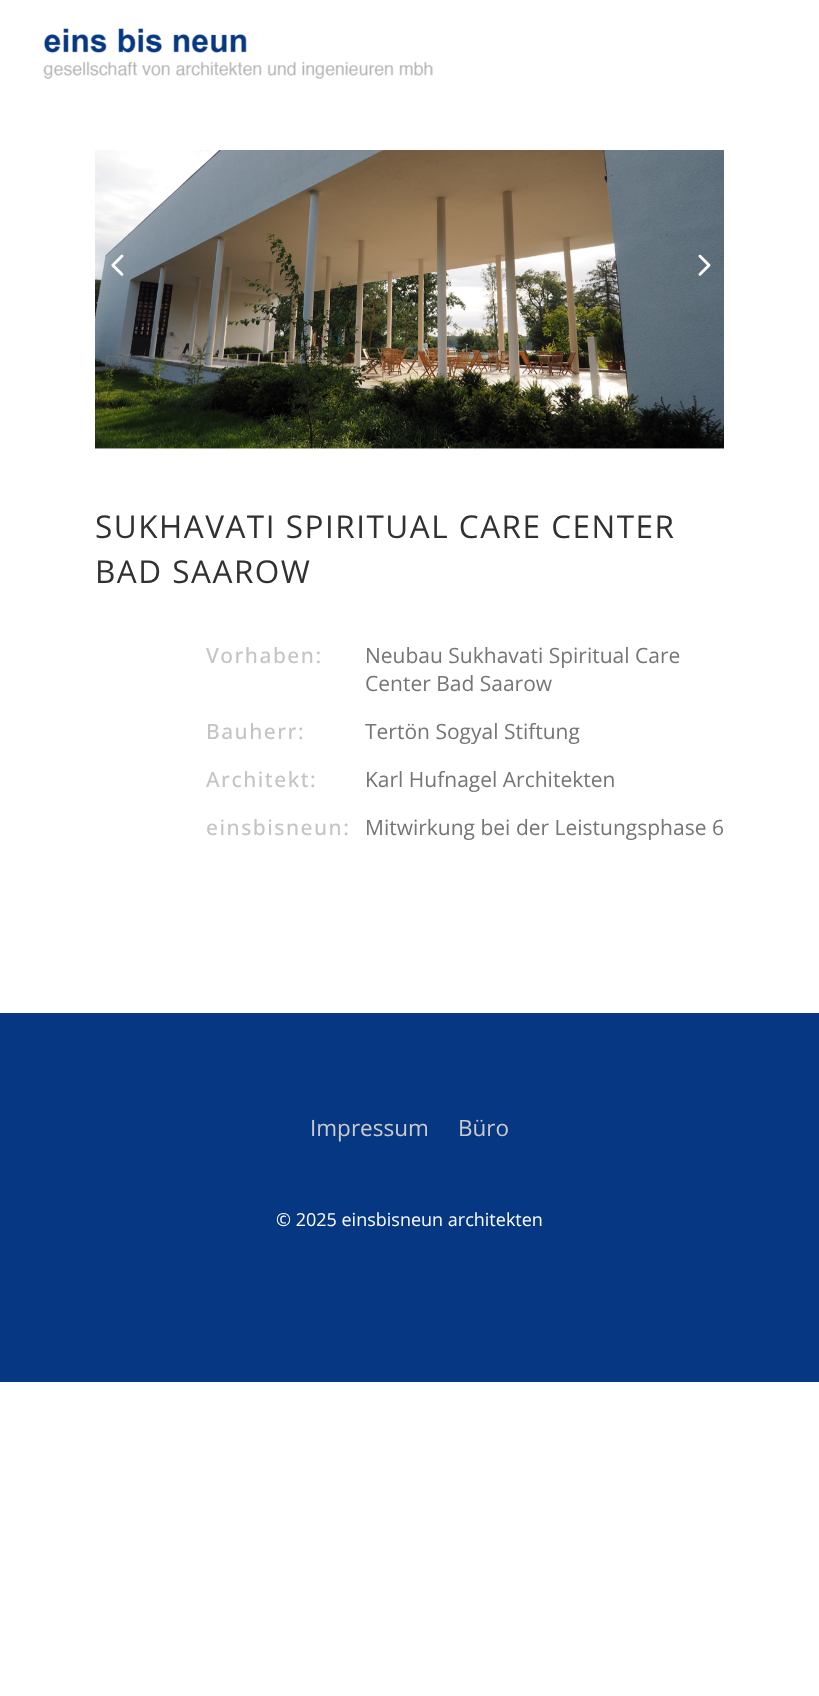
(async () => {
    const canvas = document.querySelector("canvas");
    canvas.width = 819;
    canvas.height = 1696;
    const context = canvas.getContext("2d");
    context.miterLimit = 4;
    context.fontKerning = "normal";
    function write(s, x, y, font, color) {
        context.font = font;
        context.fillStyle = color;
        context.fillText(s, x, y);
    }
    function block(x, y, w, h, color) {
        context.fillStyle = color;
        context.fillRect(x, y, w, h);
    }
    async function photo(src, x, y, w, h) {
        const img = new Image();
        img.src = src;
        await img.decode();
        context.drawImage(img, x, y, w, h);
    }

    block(0, 0, 819, 1696, "rgb(255, 255, 255)");
    await photo("media/1.png", 43, 28, 390, 51);
    await photo("media/2.png", 95, 150, 629, 299);
    await photo("media/3.png", 111, 254, 13, 22);
    await photo("media/4.png", 698, 254, 13, 22);
    context.letterSpacing = "1.5px";
    write("SUKHAVATI SPIRITUAL CARE CENTER", 95, 538, "31.5px Open Sans", "rgb(49, 49, 49)");
    write("BAD SAAROW", 95, 583, "31.5px Open Sans", "rgb(49, 49, 49)");
    write("Vorhaben:", 206, 663, "500 21px Open Sans", "rgb(196, 196, 196)");
    context.letterSpacing = "0px";
    write("Neubau Sukhavati Spiritual Care", 365, 663, "21px Open Sans", "rgb(117, 117, 117)");
    write("Center Bad Saarow", 365, 691, "21px Open Sans", "rgb(117, 117, 117)");
    context.letterSpacing = "1.5px";
    write("Bauherr:", 206, 739, "500 21px Open Sans", "rgb(196, 196, 196)");
    context.letterSpacing = "0px";
    write("Tertön Sogyal Stiftung", 365, 739, "21px Open Sans", "rgb(117, 117, 117)");
    context.letterSpacing = "1.5px";
    write("Architekt:", 206, 787, "500 21px Open Sans", "rgb(196, 196, 196)");
    context.letterSpacing = "0px";
    write("Karl Hufnagel Architekten", 365, 787, "21px Open Sans", "rgb(117, 117, 117)");
    context.letterSpacing = "1.5px";
    write("einsbisneun:", 206, 835, "500 21px Open Sans", "rgb(196, 196, 196)");
    context.letterSpacing = "0px";
    write("Mitwirkung bei der Leistungsphase 6", 365, 835, "21px Open Sans", "rgb(117, 117, 117)");
    block(0, 1013, 819, 369, "rgb(6, 55, 130)");
    write("Impressum", 310, 1136, "22.5px Open Sans", "rgb(204, 204, 204)");
    write("Büro", 458, 1136, "22.5px Open Sans", "rgb(204, 204, 204)");
    write("© 2025 einsbisneun architekten", 276, 1226, "18px Open Sans", "rgb(255, 255, 255)");
})();
